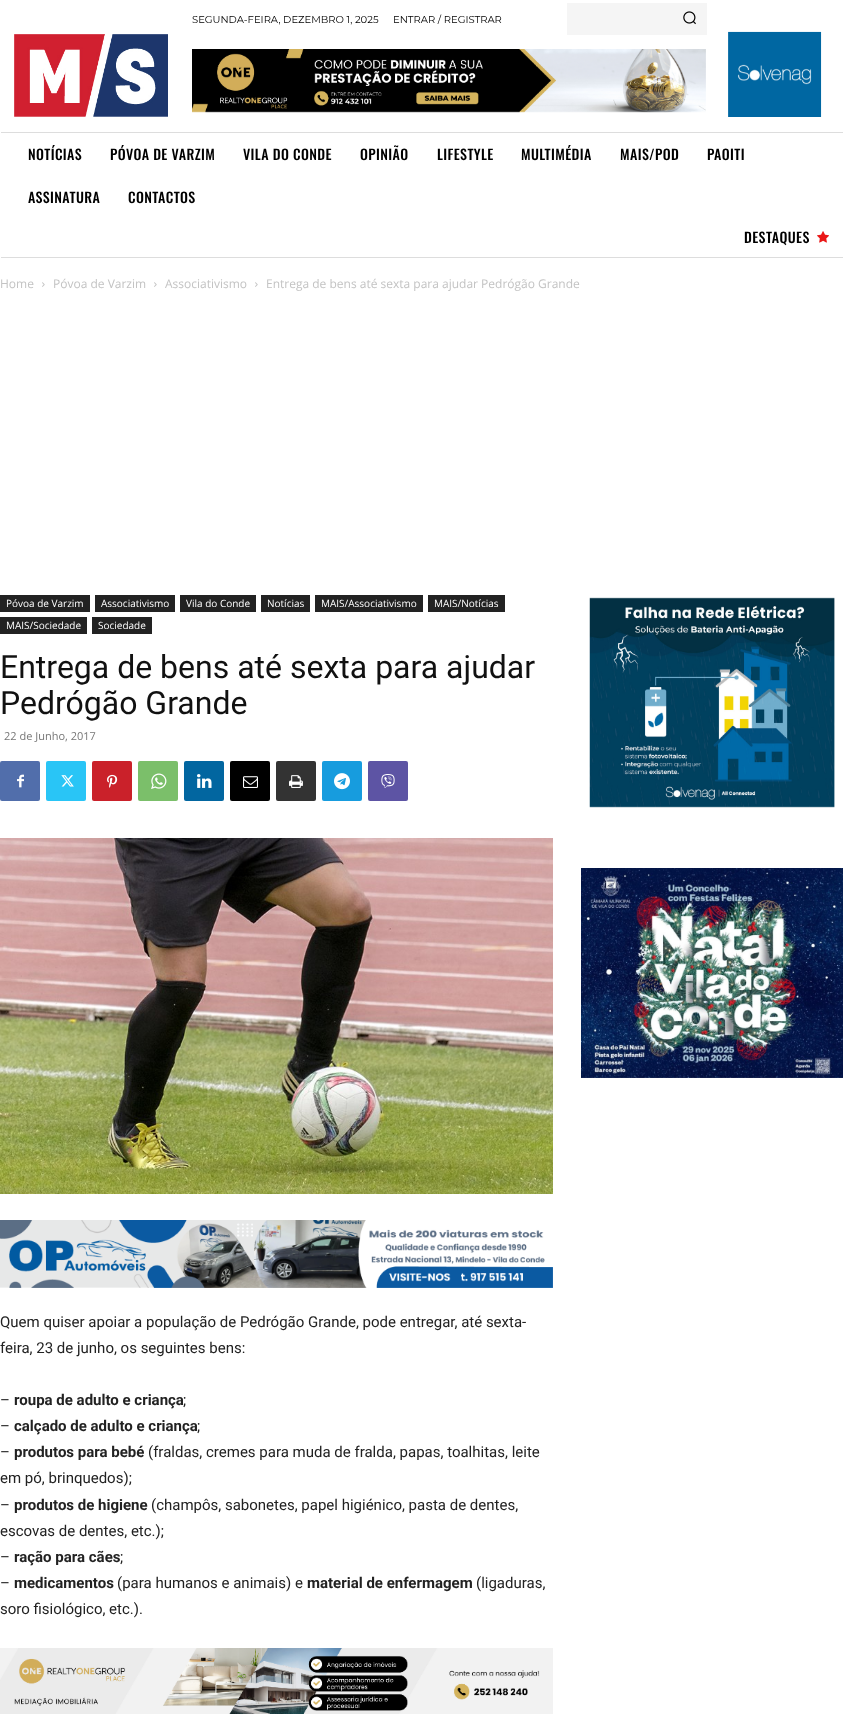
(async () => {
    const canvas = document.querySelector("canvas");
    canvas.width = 843;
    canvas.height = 1714;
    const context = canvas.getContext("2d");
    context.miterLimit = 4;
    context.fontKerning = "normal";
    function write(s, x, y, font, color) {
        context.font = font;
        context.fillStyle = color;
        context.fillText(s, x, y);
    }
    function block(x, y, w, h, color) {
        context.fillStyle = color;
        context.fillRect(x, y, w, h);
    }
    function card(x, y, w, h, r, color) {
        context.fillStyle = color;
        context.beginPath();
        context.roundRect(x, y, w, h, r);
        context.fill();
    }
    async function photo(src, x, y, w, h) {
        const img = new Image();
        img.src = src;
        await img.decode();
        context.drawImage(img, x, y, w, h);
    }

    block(0, 0, 843, 1714, "rgb(255, 255, 255)");
    write("SEGUNDA-FEIRA, DEZEMBRO 1, 2025", 192, 23, "10px Montserrat", "rgb(0, 0, 0)");
    write("ENTRAR / REGISTRAR", 393, 23, "10px Montserrat", "rgb(0, 0, 0)");
    block(567, 3, 140, 32, "rgb(245, 245, 245)");
    await photo("media/1.png", 683, 11, 13, 14);
    await photo("media/2.png", 192, 49, 514, 64);
    await photo("media/3.png", 14, 34, 154, 83);
    await photo("media/4.png", 728, 31, 94, 86);
    block(1, 132, 842, 1, "rgb(221, 221, 221)");
    block(1, 257, 842, 1, "rgb(221, 221, 221)");
    context.letterSpacing = "0.4px";
    write("NOTÍCIAS", 28, 160, "500 14px Oswald", "rgb(0, 0, 0)");
    write("PÓVOA DE VARZIM", 110, 160, "500 14px Oswald", "rgb(0, 0, 0)");
    write("VILA DO CONDE", 243, 160, "500 14px Oswald", "rgb(0, 0, 0)");
    write("OPINIÃO", 360, 160, "500 14px Oswald", "rgb(0, 0, 0)");
    write("LIFESTYLE", 437, 160, "500 14px Oswald", "rgb(0, 0, 0)");
    write("MULTIMÉDIA", 521, 160, "500 14px Oswald", "rgb(0, 0, 0)");
    write("MAIS/POD", 620, 160, "500 14px Oswald", "rgb(0, 0, 0)");
    write("PAOITI", 707, 160, "500 14px Oswald", "rgb(0, 0, 0)");
    write("ASSINATURA", 28, 203, "500 14px Oswald", "rgb(0, 0, 0)");
    write("CONTACTOS", 128, 203, "500 14px Oswald", "rgb(0, 0, 0)");
    write("DESTAQUES", 744, 243, "500 14px Oswald", "rgb(0, 0, 0)");
    await photo("media/5.png", 817, 231, 12, 12);
    context.letterSpacing = "0px";
    write("Home", 0, 288, "12px Open Sans", "rgb(195, 195, 195)");
    await photo("media/6.png", 42, 282, 3, 5);
    write("Póvoa de Varzim", 53, 288, "12px Open Sans", "rgb(195, 195, 195)");
    await photo("media/6.png", 154, 282, 3, 5);
    write("Associativismo", 165, 288, "12px Open Sans", "rgb(195, 195, 195)");
    await photo("media/6.png", 255, 282, 3, 5);
    write("Entrega de bens até sexta para ajudar Pedrógão Grande", 266, 288, "12px Open Sans", "rgb(195, 195, 195)");
    block(0, 595, 90, 17, "rgb(34, 34, 34)");
    write("Póvoa de Varzim", 6, 607, "10px Open Sans", "rgb(255, 255, 255)");
    block(95, 595, 80, 17, "rgb(34, 34, 34)");
    write("Associativismo", 101, 607, "10px Open Sans", "rgb(255, 255, 255)");
    block(180, 595, 76, 17, "rgb(34, 34, 34)");
    write("Vila do Conde", 186, 607, "10px Open Sans", "rgb(255, 255, 255)");
    block(261, 595, 49, 17, "rgb(34, 34, 34)");
    write("Notícias", 267, 607, "10px Open Sans", "rgb(255, 255, 255)");
    block(315, 595, 108, 17, "rgb(34, 34, 34)");
    write("MAIS/Associativismo", 321, 607, "10px Open Sans", "rgb(255, 255, 255)");
    block(428, 595, 77, 17, "rgb(34, 34, 34)");
    write("MAIS/Notícias", 434, 607, "10px Open Sans", "rgb(255, 255, 255)");
    block(0, 617, 87, 17, "rgb(34, 34, 34)");
    write("MAIS/Sociedade", 6, 629, "10px Open Sans", "rgb(255, 255, 255)");
    block(92, 617, 60, 17, "rgb(34, 34, 34)");
    write("Sociedade", 98, 629, "10px Open Sans", "rgb(255, 255, 255)");
    write("Entrega de bens até sexta para ajudar", 0, 678, "32px Roboto", "rgb(17, 17, 17)");
    write("Pedrógão Grande", 0, 714, "32px Roboto", "rgb(17, 17, 17)");
    write("22 de Junho, 2017", 4, 740, "11px Open Sans", "rgb(118, 118, 118)");
    card(0, 761, 40, 40, 2, "rgb(81, 110, 171)");
    await photo("media/7.png", 17, 774, 7, 14);
    card(46, 761, 40, 40, 2, "rgb(41, 197, 246)");
    await photo("media/8.png", 61, 775, 13, 12);
    card(92, 761, 40, 40, 2, "rgb(202, 33, 42)");
    await photo("media/9.png", 107, 774, 11, 14);
    card(138, 761, 40, 40, 2, "rgb(123, 191, 106)");
    await photo("media/10.png", 151, 773, 16, 16);
    card(184, 761, 40, 40, 2, "rgb(2, 102, 160)");
    await photo("media/11.png", 197, 774, 15, 14);
    card(230, 761, 40, 40, 2, "rgb(0, 0, 0)");
    await photo("media/12.png", 243, 776, 15, 12);
    card(276, 761, 40, 40, 2, "rgb(51, 51, 51)");
    await photo("media/13.png", 289, 775, 14, 13);
    card(322, 761, 40, 40, 2, "rgb(23, 156, 222)");
    await photo("media/14.png", 334, 773, 16, 17);
    card(368, 761, 40, 40, 2, "rgb(93, 84, 164)");
    await photo("media/15.png", 381, 774, 14, 14);
    await photo("media/16.png", 0, 838, 553, 356);
    await photo("media/17.png", 0, 1220, 553, 68);
    write("Quem quiser apoiar a população de Pedrógão Grande, pode entregar, até sexta-", 0, 1327, "15px Roboto", "rgb(34, 34, 34)");
    write("feira, 23 de junho, os seguintes bens:", 0, 1353, "15px Roboto", "rgb(34, 34, 34)");
    write("–", 0, 1405, "15px Roboto", "rgb(34, 34, 34)");
    write("roupa de adulto e criança", 14, 1405, "bold 15px Roboto", "rgb(34, 34, 34)");
    write(";", 183, 1405, "15px Roboto", "rgb(34, 34, 34)");
    write("–", 0, 1431, "15px Roboto", "rgb(34, 34, 34)");
    write("calçado de adulto e criança", 14, 1431, "bold 15px Roboto", "rgb(34, 34, 34)");
    write(";", 197, 1431, "15px Roboto", "rgb(34, 34, 34)");
    write("–", 0, 1457, "15px Roboto", "rgb(34, 34, 34)");
    write("produtos para bebé", 14, 1457, "bold 15px Roboto", "rgb(34, 34, 34)");
    write("(fraldas, cremes para muda de fralda, papas, toalhitas, leite", 148, 1457, "15px Roboto", "rgb(34, 34, 34)");
    write("em pó, brinquedos);", 0, 1483, "15px Roboto", "rgb(34, 34, 34)");
    write("–", 0, 1510, "15px Roboto", "rgb(34, 34, 34)");
    write("produtos de higiene", 14, 1510, "bold 15px Roboto", "rgb(34, 34, 34)");
    write("(champôs, sabonetes, papel higiénico, pasta de dentes,", 151, 1510, "15px Roboto", "rgb(34, 34, 34)");
    write("escovas de dentes, etc.);", 0, 1536, "15px Roboto", "rgb(34, 34, 34)");
    write("–", 0, 1562, "15px Roboto", "rgb(34, 34, 34)");
    write("ração para cães", 14, 1562, "bold 15px Roboto", "rgb(34, 34, 34)");
    write(";", 120, 1562, "15px Roboto", "rgb(34, 34, 34)");
    write("–", 0, 1588, "15px Roboto", "rgb(34, 34, 34)");
    write("medicamentos", 14, 1588, "bold 15px Roboto", "rgb(34, 34, 34)");
    write("(para humanos e animais) e", 117, 1588, "15px Roboto", "rgb(34, 34, 34)");
    write("material de enfermagem", 307, 1588, "bold 15px Roboto", "rgb(34, 34, 34)");
    write("(ligaduras,", 476, 1588, "15px Roboto", "rgb(34, 34, 34)");
    write("soro fisiológico, etc.).", 0, 1614, "15px Roboto", "rgb(34, 34, 34)");
    await photo("media/18.png", 0, 1648, 553, 66);
    await photo("media/19.png", 589, 597, 246, 211);
    await photo("media/20.png", 581, 868, 262, 210);
})();
